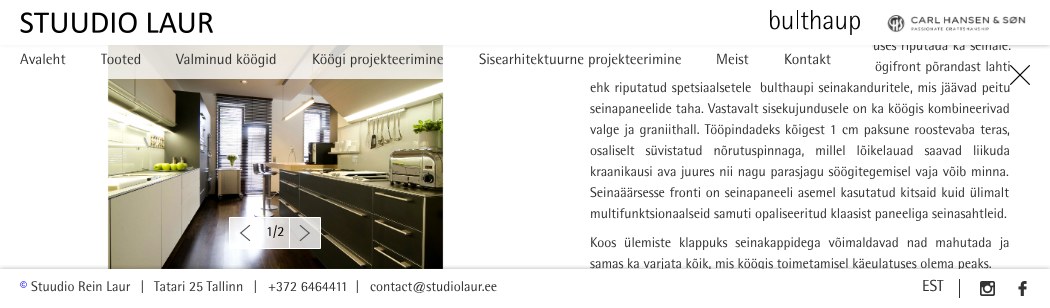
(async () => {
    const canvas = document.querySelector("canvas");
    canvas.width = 1050;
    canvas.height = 308;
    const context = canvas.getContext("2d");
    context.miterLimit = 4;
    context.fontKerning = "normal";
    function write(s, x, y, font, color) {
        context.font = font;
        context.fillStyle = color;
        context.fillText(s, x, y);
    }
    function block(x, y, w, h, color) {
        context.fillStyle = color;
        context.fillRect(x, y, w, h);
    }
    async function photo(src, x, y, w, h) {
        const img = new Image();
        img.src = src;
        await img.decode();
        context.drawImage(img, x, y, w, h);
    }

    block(0, 0, 1050, 308, "rgb(255, 255, 255)");
    await photo("media/1.png", 107, 45, 337, 224);
    context.fillStyle = "rgba(255, 255, 255, 0.8)";
    context.beginPath();
    context.rect(229.5, 217.5, 91, 31);
    context.fill();
    context.strokeStyle = "rgb(255, 255, 255)";
    context.stroke();
    await photo("media/2.png", 239, 224, 12, 18);
    block(289, 218, 1, 30, "rgb(255, 255, 255)");
    block(260, 218, 1, 30, "rgb(255, 255, 255)");
    write("1/2", 266, 236, "14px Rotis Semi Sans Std", "rgb(0, 0, 0)");
    await photo("media/3.png", 299, 225, 11, 17);
    context.save();
    context.beginPath();
    context.rect(0, 45, 1050, 224);
    context.clip();
    context.wordSpacing = "1px";
    write("uses riputada ka seinale.", 873, 50, "14px Rotis Semi Sans Std", "rgb(51, 51, 51)");
    context.restore();
    context.wordSpacing = "1px";
    write("ögifront põrandast lahti", 875, 71, "14px Rotis Semi Sans Std", "rgb(51, 51, 51)");
    write("ehk riputatud spetsiaalsetele", 590, 92, "14px Rotis Semi Sans Std", "rgb(51, 51, 51)");
    write("bulthaupi seinakanduritele, mis jäävad peitu", 760, 92, "14px Rotis Semi Sans Std", "rgb(51, 51, 51)");
    context.wordSpacing = "0.5px";
    write("seinapaneelide taha. Vastavalt sisekujundusele on ka köögis kombineerivad", 590, 113, "14px Rotis Semi Sans Std", "rgb(51, 51, 51)");
    context.wordSpacing = "1.5px";
    write("valge ja graniithall. Tööpindadeks kõigest 1 cm paksune roostevaba teras,", 590, 134, "14px Rotis Semi Sans Std", "rgb(51, 51, 51)");
    context.wordSpacing = "7.25px";
    write("osaliselt süvistatud nõrutuspinnaga, millel lõikelauad saavad liikuda", 590, 155, "14px Rotis Semi Sans Std", "rgb(51, 51, 51)");
    context.wordSpacing = "1px";
    write("kraanikausi ava juures nii nagu parasjagu söögitegemisel vaja võib minna.", 590, 176, "14px Rotis Semi Sans Std", "rgb(51, 51, 51)");
    write("Seinaäärsesse fronti on seinapaneeli asemel kasutatud kitsaid kuid ülimalt", 590, 197, "14px Rotis Semi Sans Std", "rgb(51, 51, 51)");
    context.wordSpacing = "0px";
    write("multifunktsionaalseid samuti opaliseeritud klaasist paneeliga seinasahtleid.", 590, 218, "14px Rotis Semi Sans Std", "rgb(51, 51, 51)");
    context.wordSpacing = "4.25px";
    write("Koos ülemiste klappuks seinakappidega võimaldavad nad mahutada ja", 590, 247, "14px Rotis Semi Sans Std", "rgb(51, 51, 51)");
    context.save();
    context.beginPath();
    context.rect(0, 45, 1050, 224);
    context.clip();
    context.wordSpacing = "0px";
    write("samas ka varjata kõik, mis köögis toimetamisel käeulatuses olema peaks.", 590, 268, "14px Rotis Semi Sans Std", "rgb(51, 51, 51)");
    context.restore();
    await photo("media/4.png", 1010, 65, 20, 20);
    context.save();
    context.beginPath();
    context.rect(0, 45, 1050, 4);
    context.clip();
    context.fillStyle = "rgba(0, 0, 0, 0.3)";
    context.filter = "blur(2.5px)";
    context.beginPath();
    context.rect(0, 0, 1050, 45);
    context.fill();
    context.filter = "none";
    context.restore();
    await photo("media/5.png", 20, 12, 193, 21);
    await photo("media/6.png", 770, 10, 90, 25);
    await photo("media/7.png", 887, 15, 139, 18);
    block(0, 45, 872, 34, "rgba(255, 255, 255, 0.8)");
    context.wordSpacing = "0px";
    write("Avaleht", 20, 64, "15px Rotis Semi Sans Std", "rgb(51, 51, 51)");
    write("Tooted", 101, 64, "15px Rotis Semi Sans Std", "rgb(51, 51, 51)");
    write("Valminud köögid", 176, 64, "15px Rotis Semi Sans Std", "rgb(51, 51, 51)");
    write("Köögi projekteerimine", 312, 64, "15px Rotis Semi Sans Std", "rgb(51, 51, 51)");
    write("Sisearhitektuurne projekteerimine", 479, 64, "15px Rotis Semi Sans Std", "rgb(51, 51, 51)");
    write("Meist", 716, 64, "15px Rotis Semi Sans Std", "rgb(51, 51, 51)");
    write("Kontakt", 784, 64, "15px Rotis Semi Sans Std", "rgb(51, 51, 51)");
    context.save();
    context.beginPath();
    context.rect(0, 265, 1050, 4);
    context.clip();
    context.fillStyle = "rgba(0, 0, 0, 0.3)";
    context.filter = "blur(2.5px)";
    context.beginPath();
    context.rect(0, 269, 1050, 39);
    context.fill();
    context.filter = "none";
    context.restore();
    write("©", 20, 291, "14px Rotis Semi Sans Std", "rgb(0, 0, 238)");
    write("Stuudio Rein Laur", 31, 291, "14px Rotis Semi Sans Std", "rgb(51, 51, 51)");
    write("|", 140, 291, "14px Rotis Semi Sans Std", "rgb(51, 51, 51)");
    write("Tatari 25 Tallinn", 154, 291, "14px Rotis Semi Sans Std", "rgb(51, 51, 51)");
    write("|", 253, 291, "14px Rotis Semi Sans Std", "rgb(51, 51, 51)");
    write("+372 6464411", 268, 291, "14px Rotis Semi Sans Std", "rgb(51, 51, 51)");
    write("|", 355, 291, "14px Rotis Semi Sans Std", "rgb(51, 51, 51)");
    write("contact@studiolaur.ee", 370, 291, "14px Rotis Semi Sans Std", "rgb(51, 51, 51)");
    block(959, 279, 1, 19, "rgb(51, 51, 51)");
    write("EST", 922, 291, "16px Rotis Semi Sans Std", "rgb(51, 51, 51)");
    await photo("media/8.png", 980, 281, 15, 15);
    await photo("media/9.png", 1018, 281, 9, 15);
})();
